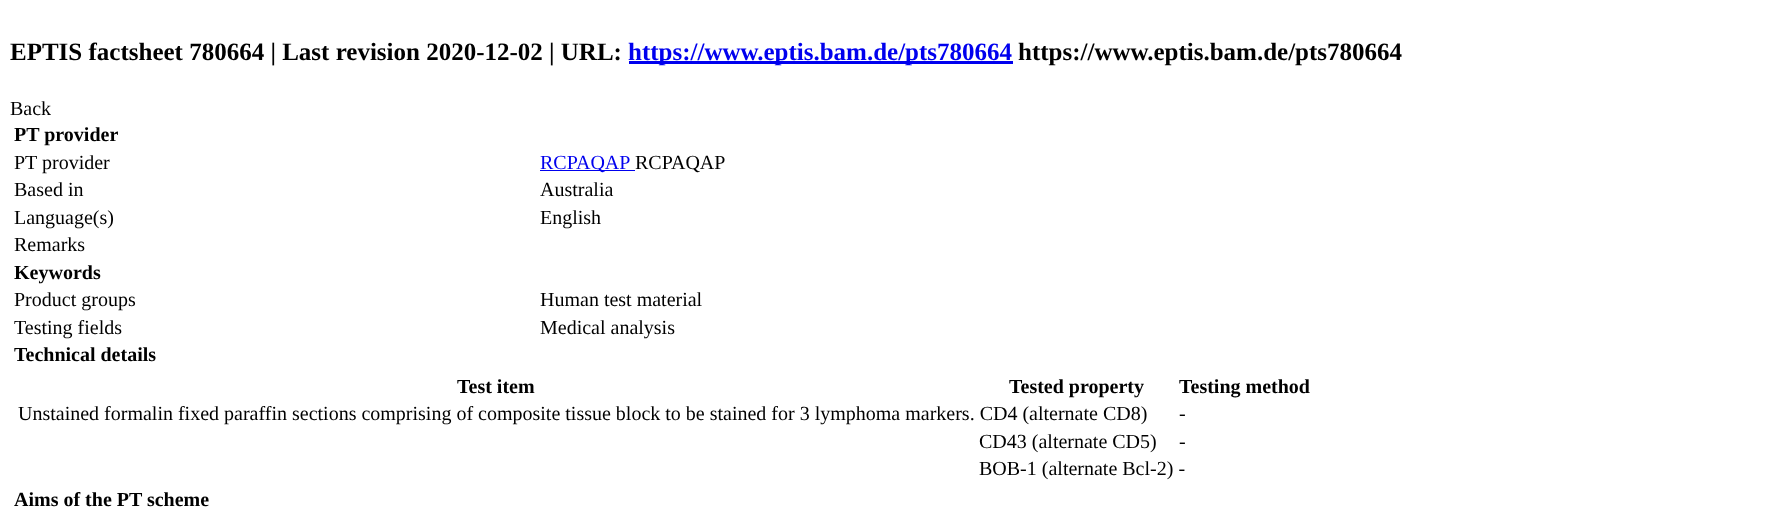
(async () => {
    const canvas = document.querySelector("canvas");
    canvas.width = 1784;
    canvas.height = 510;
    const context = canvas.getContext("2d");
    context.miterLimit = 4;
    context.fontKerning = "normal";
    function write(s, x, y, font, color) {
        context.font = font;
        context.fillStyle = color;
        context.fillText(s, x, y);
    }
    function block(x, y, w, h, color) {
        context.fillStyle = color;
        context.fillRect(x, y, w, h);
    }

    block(0, 0, 1784, 510, "rgb(255, 255, 255)");
    write("EPTIS factsheet 780664 | Last revision 2020-12-02 | URL:", 10, 60, "bold 25px Liberation Serif", "rgb(0, 0, 0)");
    block(629, 61, 384, 3, "rgb(0, 0, 238)");
    write("https://www.eptis.bam.de/pts780664", 628, 60, "bold 25px Liberation Serif", "rgb(0, 0, 238)");
    write("https://www.eptis.bam.de/pts780664", 1018, 60, "bold 25px Liberation Serif", "rgb(0, 0, 0)");
    write("Back", 10, 115, "20px Liberation Serif", "rgb(0, 0, 0)");
    write("PT provider", 14, 141, "bold 20px Liberation Serif", "rgb(0, 0, 0)");
    write("PT provider", 14, 169, "20px Liberation Serif", "rgb(0, 0, 0)");
    block(540, 170, 95, 1, "rgb(0, 0, 238)");
    write("RCPAQAP", 540, 169, "20px Liberation Serif", "rgb(0, 0, 238)");
    write("RCPAQAP", 635, 169, "20px Liberation Serif", "rgb(0, 0, 0)");
    write("Based in", 14, 196, "20px Liberation Serif", "rgb(0, 0, 0)");
    write("Australia", 540, 196, "20px Liberation Serif", "rgb(0, 0, 0)");
    write("Language(s)", 14, 224, "20px Liberation Serif", "rgb(0, 0, 0)");
    write("English", 540, 224, "20px Liberation Serif", "rgb(0, 0, 0)");
    write("Remarks", 14, 251, "20px Liberation Serif", "rgb(0, 0, 0)");
    write("Keywords", 14, 279, "bold 20px Liberation Serif", "rgb(0, 0, 0)");
    write("Product groups", 14, 306, "20px Liberation Serif", "rgb(0, 0, 0)");
    write("Human test material", 540, 306, "20px Liberation Serif", "rgb(0, 0, 0)");
    write("Testing fields", 14, 334, "20px Liberation Serif", "rgb(0, 0, 0)");
    write("Medical analysis", 540, 334, "20px Liberation Serif", "rgb(0, 0, 0)");
    write("Technical details", 14, 361, "bold 20px Liberation Serif", "rgb(0, 0, 0)");
    write("Test item", 457, 393, "bold 20px Liberation Serif", "rgb(0, 0, 0)");
    write("Tested property", 1009, 393, "bold 20px Liberation Serif", "rgb(0, 0, 0)");
    write("Testing method", 1179, 393, "bold 20px Liberation Serif", "rgb(0, 0, 0)");
    write("Unstained formalin fixed paraffin sections comprising of composite tissue block to be stained for 3 lymphoma markers. CD4 (alternate CD8)", 18, 420, "20px Liberation Serif", "rgb(0, 0, 0)");
    write("-", 1179, 420, "20px Liberation Serif", "rgb(0, 0, 0)");
    write("CD43 (alternate CD5)", 979, 448, "20px Liberation Serif", "rgb(0, 0, 0)");
    write("-", 1179, 448, "20px Liberation Serif", "rgb(0, 0, 0)");
    write("BOB-1 (alternate Bcl-2) -", 979, 475, "20px Liberation Serif", "rgb(0, 0, 0)");
    write("Aims of the PT scheme", 14, 506, "bold 20px Liberation Serif", "rgb(0, 0, 0)");
})();
